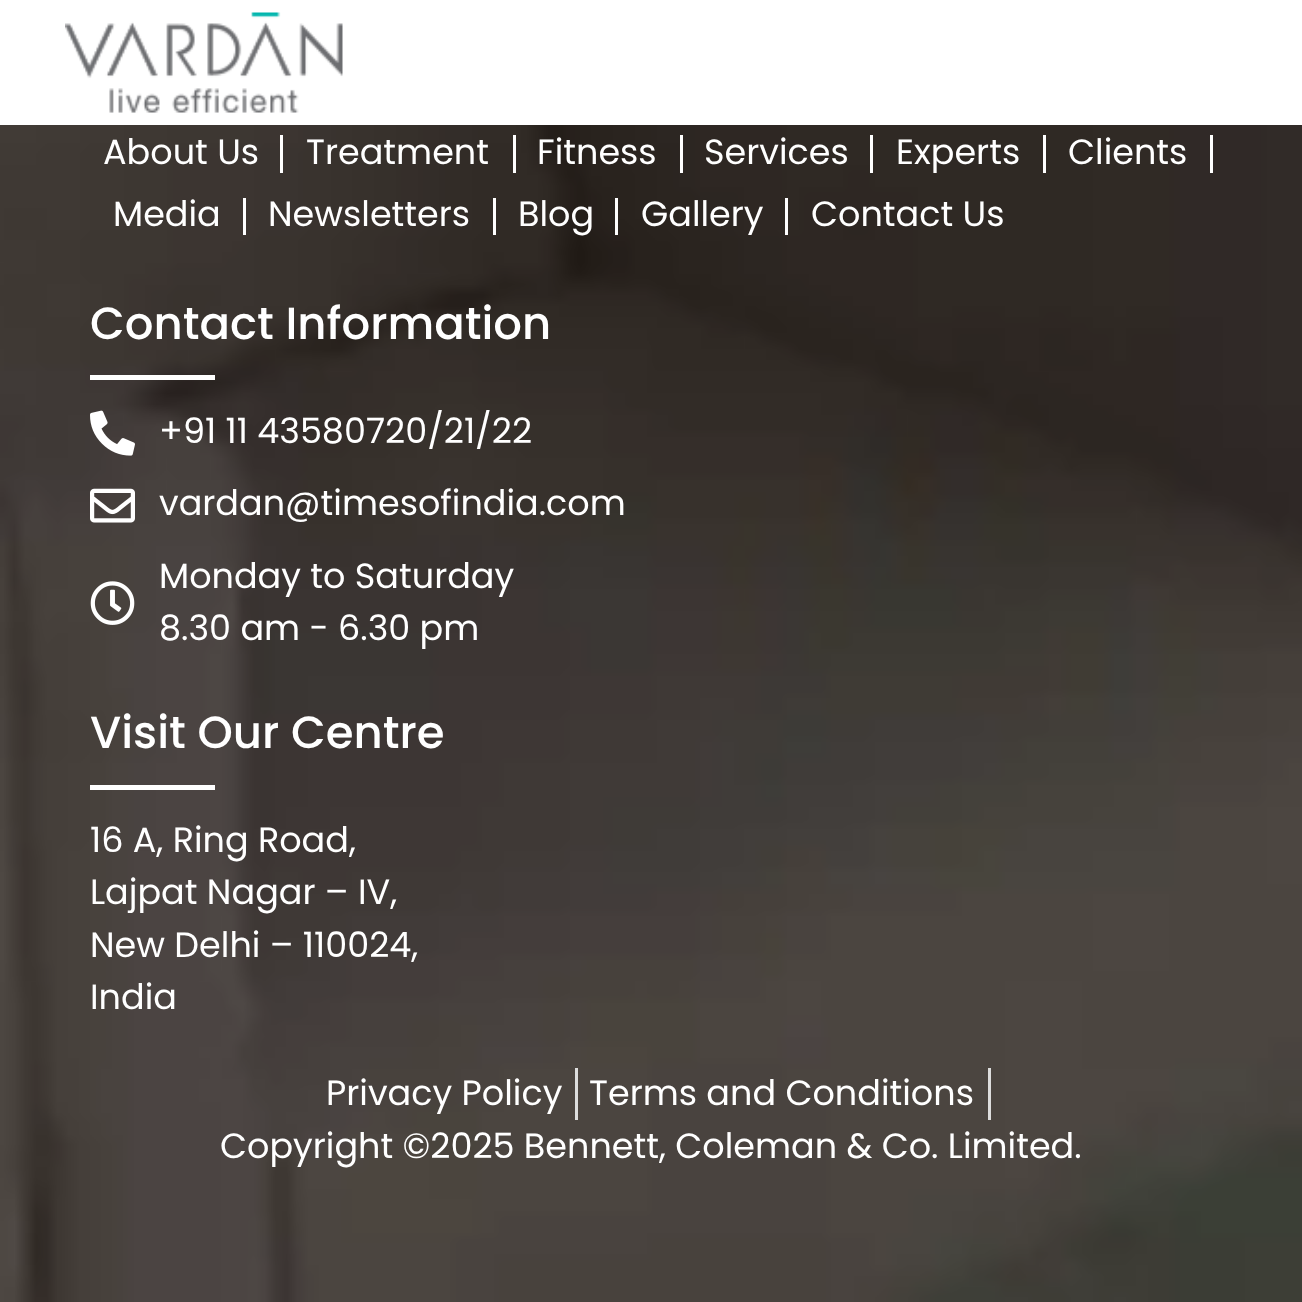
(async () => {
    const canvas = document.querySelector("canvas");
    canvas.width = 1302;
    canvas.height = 1302;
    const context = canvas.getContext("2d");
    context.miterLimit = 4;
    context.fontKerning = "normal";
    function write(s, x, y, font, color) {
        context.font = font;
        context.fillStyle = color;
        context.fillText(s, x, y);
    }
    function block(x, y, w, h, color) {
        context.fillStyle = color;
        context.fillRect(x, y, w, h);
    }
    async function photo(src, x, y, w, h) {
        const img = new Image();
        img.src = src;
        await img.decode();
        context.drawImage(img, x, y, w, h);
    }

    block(0, 0, 1302, 1302, "rgb(255, 255, 255)");
    await photo("media/1.png", 65, 12, 278, 101);
    await photo("media/2.png", 0, 125, 1302, 1177);
    write("About Us", 103, 164, "35px Poppins", "rgb(255, 255, 255)");
    block(280, 135, 3, 38, "rgb(255, 255, 255)");
    write("Treatment", 306, 164, "35px Poppins", "rgb(255, 255, 255)");
    block(513, 135, 3, 38, "rgb(255, 255, 255)");
    write("Fitness", 537, 164, "35px Poppins", "rgb(255, 255, 255)");
    block(680, 135, 3, 38, "rgb(255, 255, 255)");
    write("Services", 704, 164, "35px Poppins", "rgb(255, 255, 255)");
    block(870, 135, 3, 38, "rgb(255, 255, 255)");
    write("Experts", 896, 164, "35px Poppins", "rgb(255, 255, 255)");
    block(1043, 135, 3, 38, "rgb(255, 255, 255)");
    write("Clients", 1068, 164, "35px Poppins", "rgb(255, 255, 255)");
    block(1210, 135, 3, 38, "rgb(255, 255, 255)");
    write("Media", 113, 226, "35px Poppins", "rgb(255, 255, 255)");
    block(243, 198, 3, 37, "rgb(255, 255, 255)");
    write("Newsletters", 268, 226, "35px Poppins", "rgb(255, 255, 255)");
    block(493, 198, 3, 37, "rgb(255, 255, 255)");
    write("Blog", 518, 226, "35px Poppins", "rgb(255, 255, 255)");
    block(615, 198, 3, 37, "rgb(255, 255, 255)");
    write("Gallery", 641, 226, "35px Poppins", "rgb(255, 255, 255)");
    block(785, 198, 3, 37, "rgb(255, 255, 255)");
    write("Contact Us", 811, 226, "35px Poppins", "rgb(255, 255, 255)");
    write("Contact Information", 90, 339, "500 45px Poppins", "rgb(255, 255, 255)");
    block(90, 375, 125, 5, "rgb(255, 255, 255)");
    await photo("media/3.png", 90, 410, 45, 46);
    write("+91 11 43580720/21/22", 159, 443, "35px Poppins", "rgb(255, 255, 255)");
    await photo("media/4.png", 90, 488, 45, 35);
    write("vardan@timesofindia.com", 159, 515, "35px Poppins", "rgb(255, 255, 255)");
    await photo("media/5.png", 90, 581, 45, 44);
    write("Monday to Saturday", 159, 588, "35px Poppins", "rgb(255, 255, 255)");
    write("8.30 am - 6.30 pm", 159, 640, "35px Poppins", "rgb(255, 255, 255)");
    write("Visit Our Centre", 90, 748, "500 45px Poppins", "rgb(255, 255, 255)");
    block(90, 785, 125, 5, "rgb(255, 255, 255)");
    write("16 A, Ring Road,", 90, 852, "35px Poppins", "rgb(255, 255, 255)");
    write("Lajpat Nagar – IV,", 90, 904, "35px Poppins", "rgb(255, 255, 255)");
    write("New Delhi – 110024,", 90, 957, "35px Poppins", "rgb(255, 255, 255)");
    write("India", 90, 1009, "35px Poppins", "rgb(255, 255, 255)");
    write("Privacy Policy", 326, 1105, "35px Poppins", "rgb(255, 255, 255)");
    block(575, 1068, 3, 52, "rgb(221, 221, 221)");
    write("Terms and Conditions", 589, 1105, "35px Poppins", "rgb(255, 255, 255)");
    block(988, 1068, 3, 52, "rgb(221, 221, 221)");
    write("Copyright ©2025 Bennett, Coleman & Co. Limited.", 220, 1158, "35px Poppins", "rgb(255, 255, 255)");
})();
